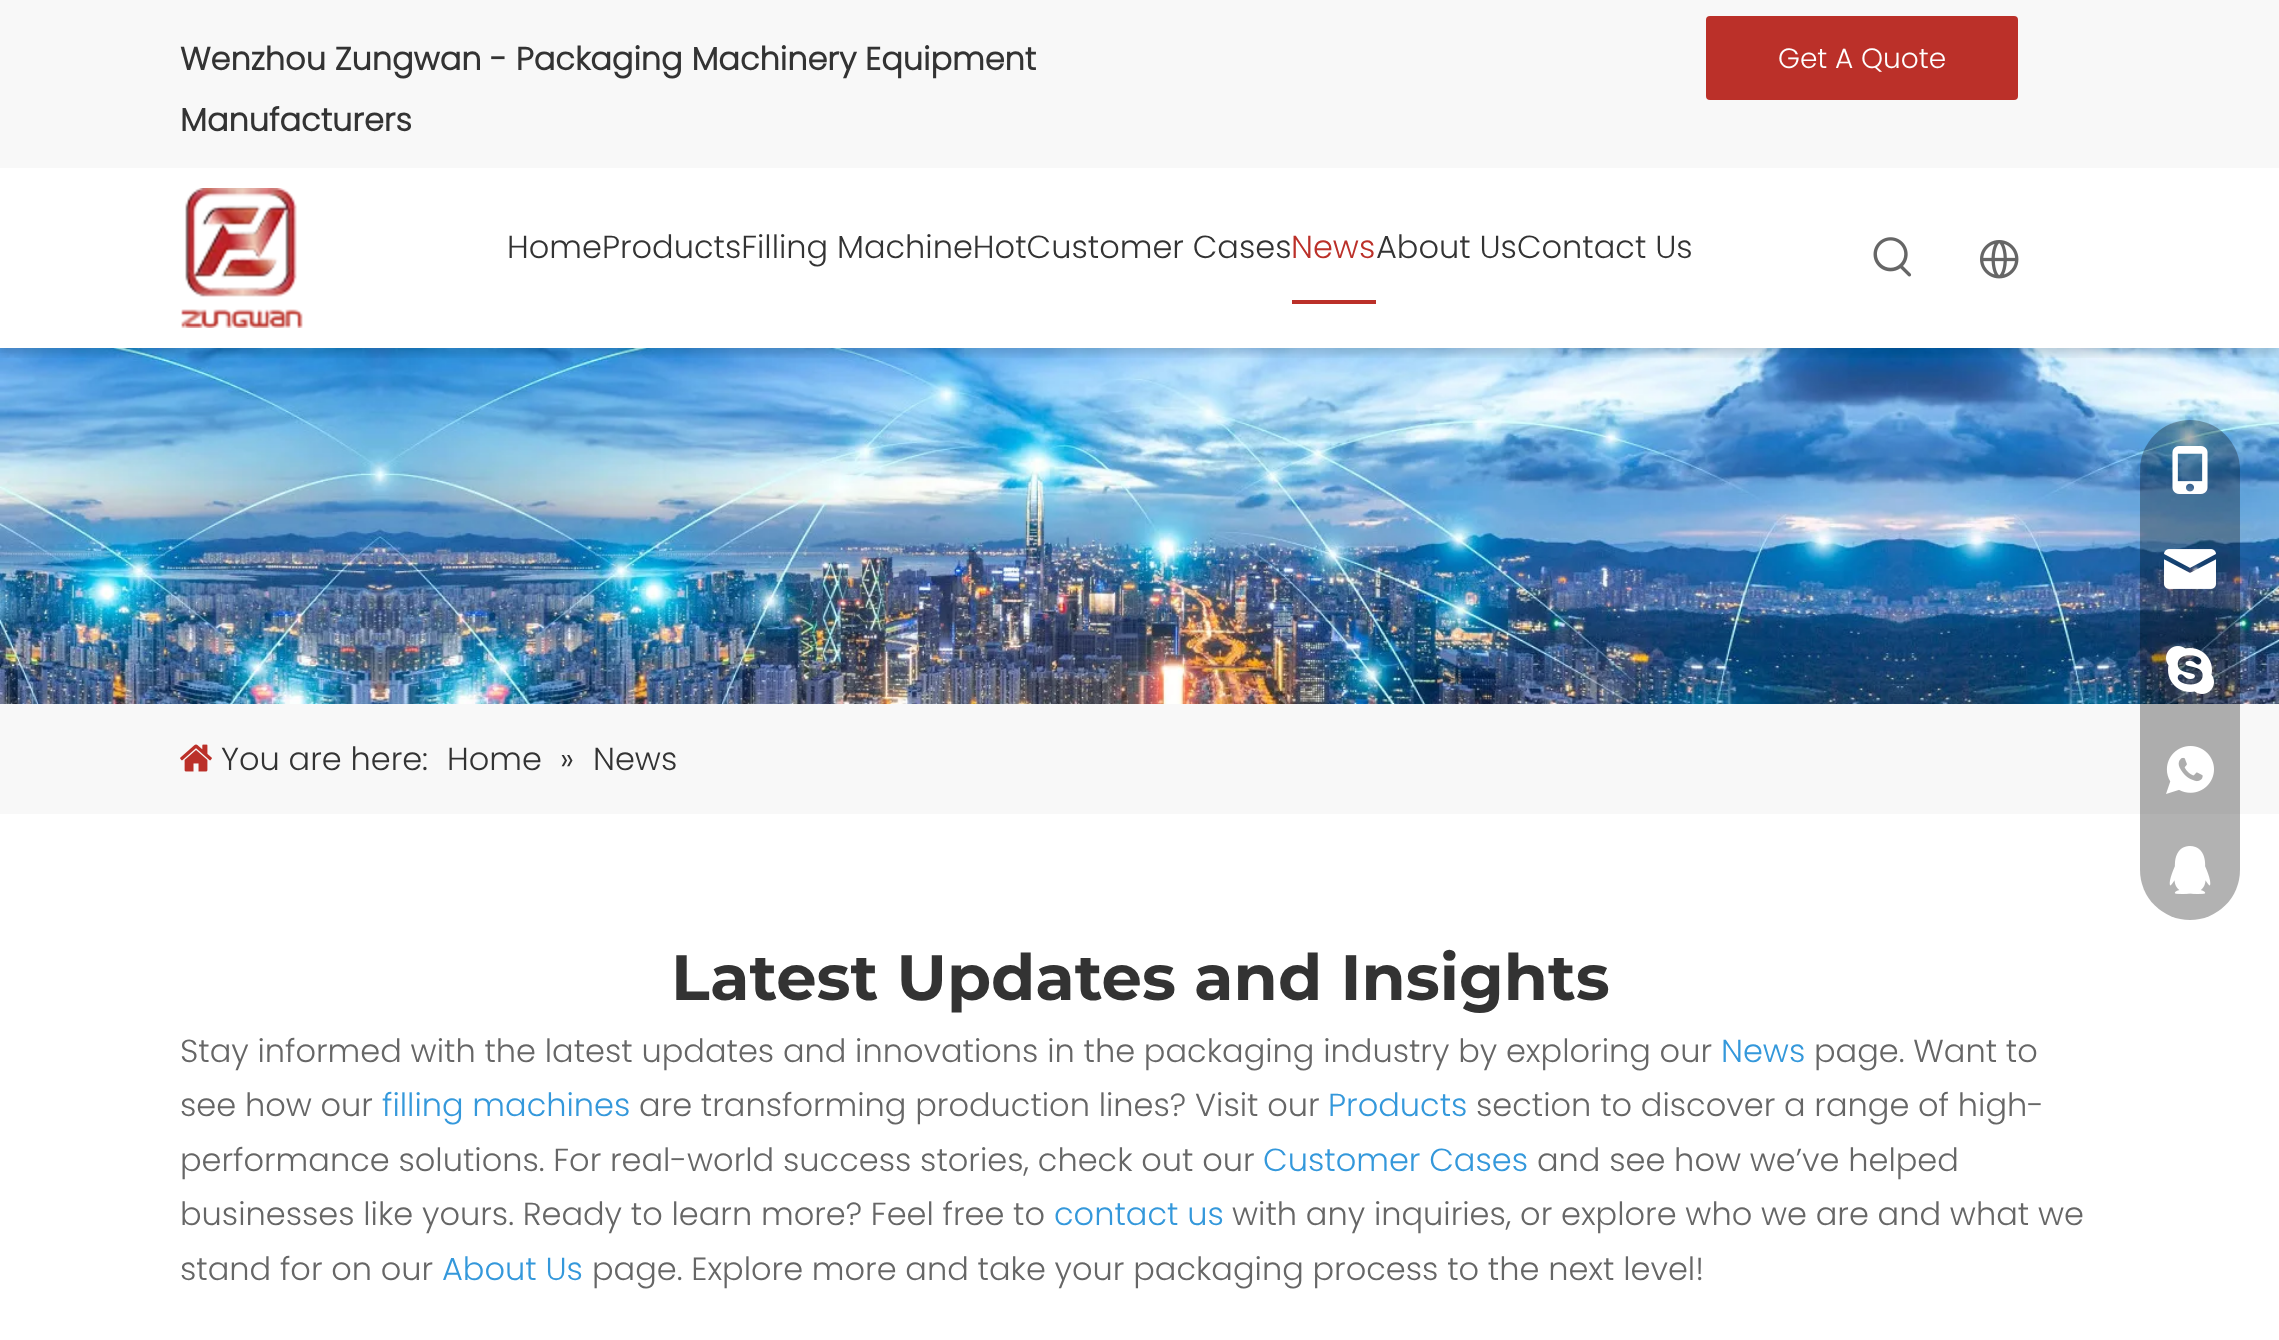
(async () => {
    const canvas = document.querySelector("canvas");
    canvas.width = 2279;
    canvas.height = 1340;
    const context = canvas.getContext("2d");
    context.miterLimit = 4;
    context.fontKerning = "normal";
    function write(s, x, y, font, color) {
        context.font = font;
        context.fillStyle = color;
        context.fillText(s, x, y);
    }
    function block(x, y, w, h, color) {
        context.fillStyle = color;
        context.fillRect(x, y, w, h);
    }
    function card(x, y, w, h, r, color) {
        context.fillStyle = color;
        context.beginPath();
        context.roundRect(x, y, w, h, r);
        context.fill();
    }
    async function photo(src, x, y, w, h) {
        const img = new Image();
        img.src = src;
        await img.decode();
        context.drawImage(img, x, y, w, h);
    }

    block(0, 0, 2279, 1340, "rgb(255, 255, 255)");
    block(0, 0, 2279, 168, "rgb(248, 248, 248)");
    write("Wenzhou Zungwan - Packaging Machinery Equipment", 180, 70, "bold 32px Poppins", "rgb(51, 51, 51)");
    write("Manufacturers", 180, 131, "bold 32px Poppins", "rgb(51, 51, 51)");
    card(1706, 16, 312, 84, 4, "rgb(187, 48, 41)");
    write("Get A Quote", 1778, 68, "300 28px Poppins", "rgb(255, 255, 255)");
    await photo("media/9.png", 0, 348, 2279, 356);
    context.save();
    context.beginPath();
    context.rect(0, 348, 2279, 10);
    context.clip();
    context.fillStyle = "rgba(0, 0, 0, 0.14)";
    context.filter = "blur(4px)";
    context.beginPath();
    context.rect(0, 174, 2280, 180);
    context.fill();
    context.filter = "none";
    context.restore();
    await photo("media/1.png", 181, 188, 122, 140);
    write("HomeProductsFilling MachineHotCustomer Cases", 507, 258, "300 32px Poppins", "rgb(51, 51, 51)");
    block(1292, 300, 84, 4, "rgb(187, 48, 41)");
    write("News", 1291, 258, "300 32px Poppins", "rgb(187, 48, 41)");
    write("About UsContact Us", 1376, 258, "300 32px Poppins", "rgb(51, 51, 51)");
    await photo("media/2.png", 1873, 237, 39, 40);
    await photo("media/3.png", 1980, 240, 39, 39);
    block(0, 704, 2279, 110, "rgb(248, 248, 248)");
    card(2140, 420, 100, 500, 50, "rgba(0, 0, 0, 0.3)");
    await photo("media/4.png", 2172, 446, 36, 48);
    await photo("media/5.png", 2164, 549, 52, 40);
    await photo("media/6.png", 2166, 646, 48, 48);
    await photo("media/7.png", 2166, 746, 48, 48);
    await photo("media/8.png", 2169, 846, 42, 48);
    await photo("media/10.png", 180, 744, 32, 28);
    write("You are here:", 221, 770, "300 32px Poppins", "rgb(51, 51, 51)");
    write("Home", 447, 770, "300 32px Poppins", "rgb(51, 51, 51)");
    write("»", 560, 770, "300 32px Poppins", "rgb(51, 51, 51)");
    write("News", 593, 770, "300 32px Poppins", "rgb(51, 51, 51)");
    write("Latest Updates and Insights", 671, 1000, "100 64px Montserrat", "rgb(51, 51, 51)");
    write("Stay informed with the latest updates and innovations in the packaging industry by exploring our", 180, 1062, "300 32px Poppins", "rgb(102, 102, 102)");
    write("News", 1721, 1062, "300 32px Poppins", "rgb(52, 152, 219)");
    write("page. Want to", 1814, 1062, "300 32px Poppins", "rgb(102, 102, 102)");
    write("see how our", 180, 1116, "300 32px Poppins", "rgb(102, 102, 102)");
    write("filling machines", 382, 1116, "300 32px Poppins", "rgb(52, 152, 219)");
    write("are transforming production lines? Visit our", 639, 1116, "300 32px Poppins", "rgb(102, 102, 102)");
    write("Products", 1328, 1116, "300 32px Poppins", "rgb(52, 152, 219)");
    write("section to discover a range of high-", 1476, 1116, "300 32px Poppins", "rgb(102, 102, 102)");
    write("performance solutions. For real-world success stories, check out our", 180, 1171, "300 32px Poppins", "rgb(102, 102, 102)");
    write("Customer Cases", 1263, 1171, "300 32px Poppins", "rgb(52, 152, 219)");
    write("and see how we’ve helped", 1537, 1171, "300 32px Poppins", "rgb(102, 102, 102)");
    write("businesses like yours. Ready to learn more? Feel free to", 180, 1225, "300 32px Poppins", "rgb(102, 102, 102)");
    write("contact us", 1054, 1225, "300 32px Poppins", "rgb(52, 152, 219)");
    write("with any inquiries, or explore who we are and what we", 1232, 1225, "300 32px Poppins", "rgb(102, 102, 102)");
    write("stand for on our", 180, 1280, "300 32px Poppins", "rgb(102, 102, 102)");
    write("About Us", 442, 1280, "300 32px Poppins", "rgb(52, 152, 219)");
    write("page. Explore more and take your packaging process to the next level!", 592, 1280, "300 32px Poppins", "rgb(102, 102, 102)");
})();
